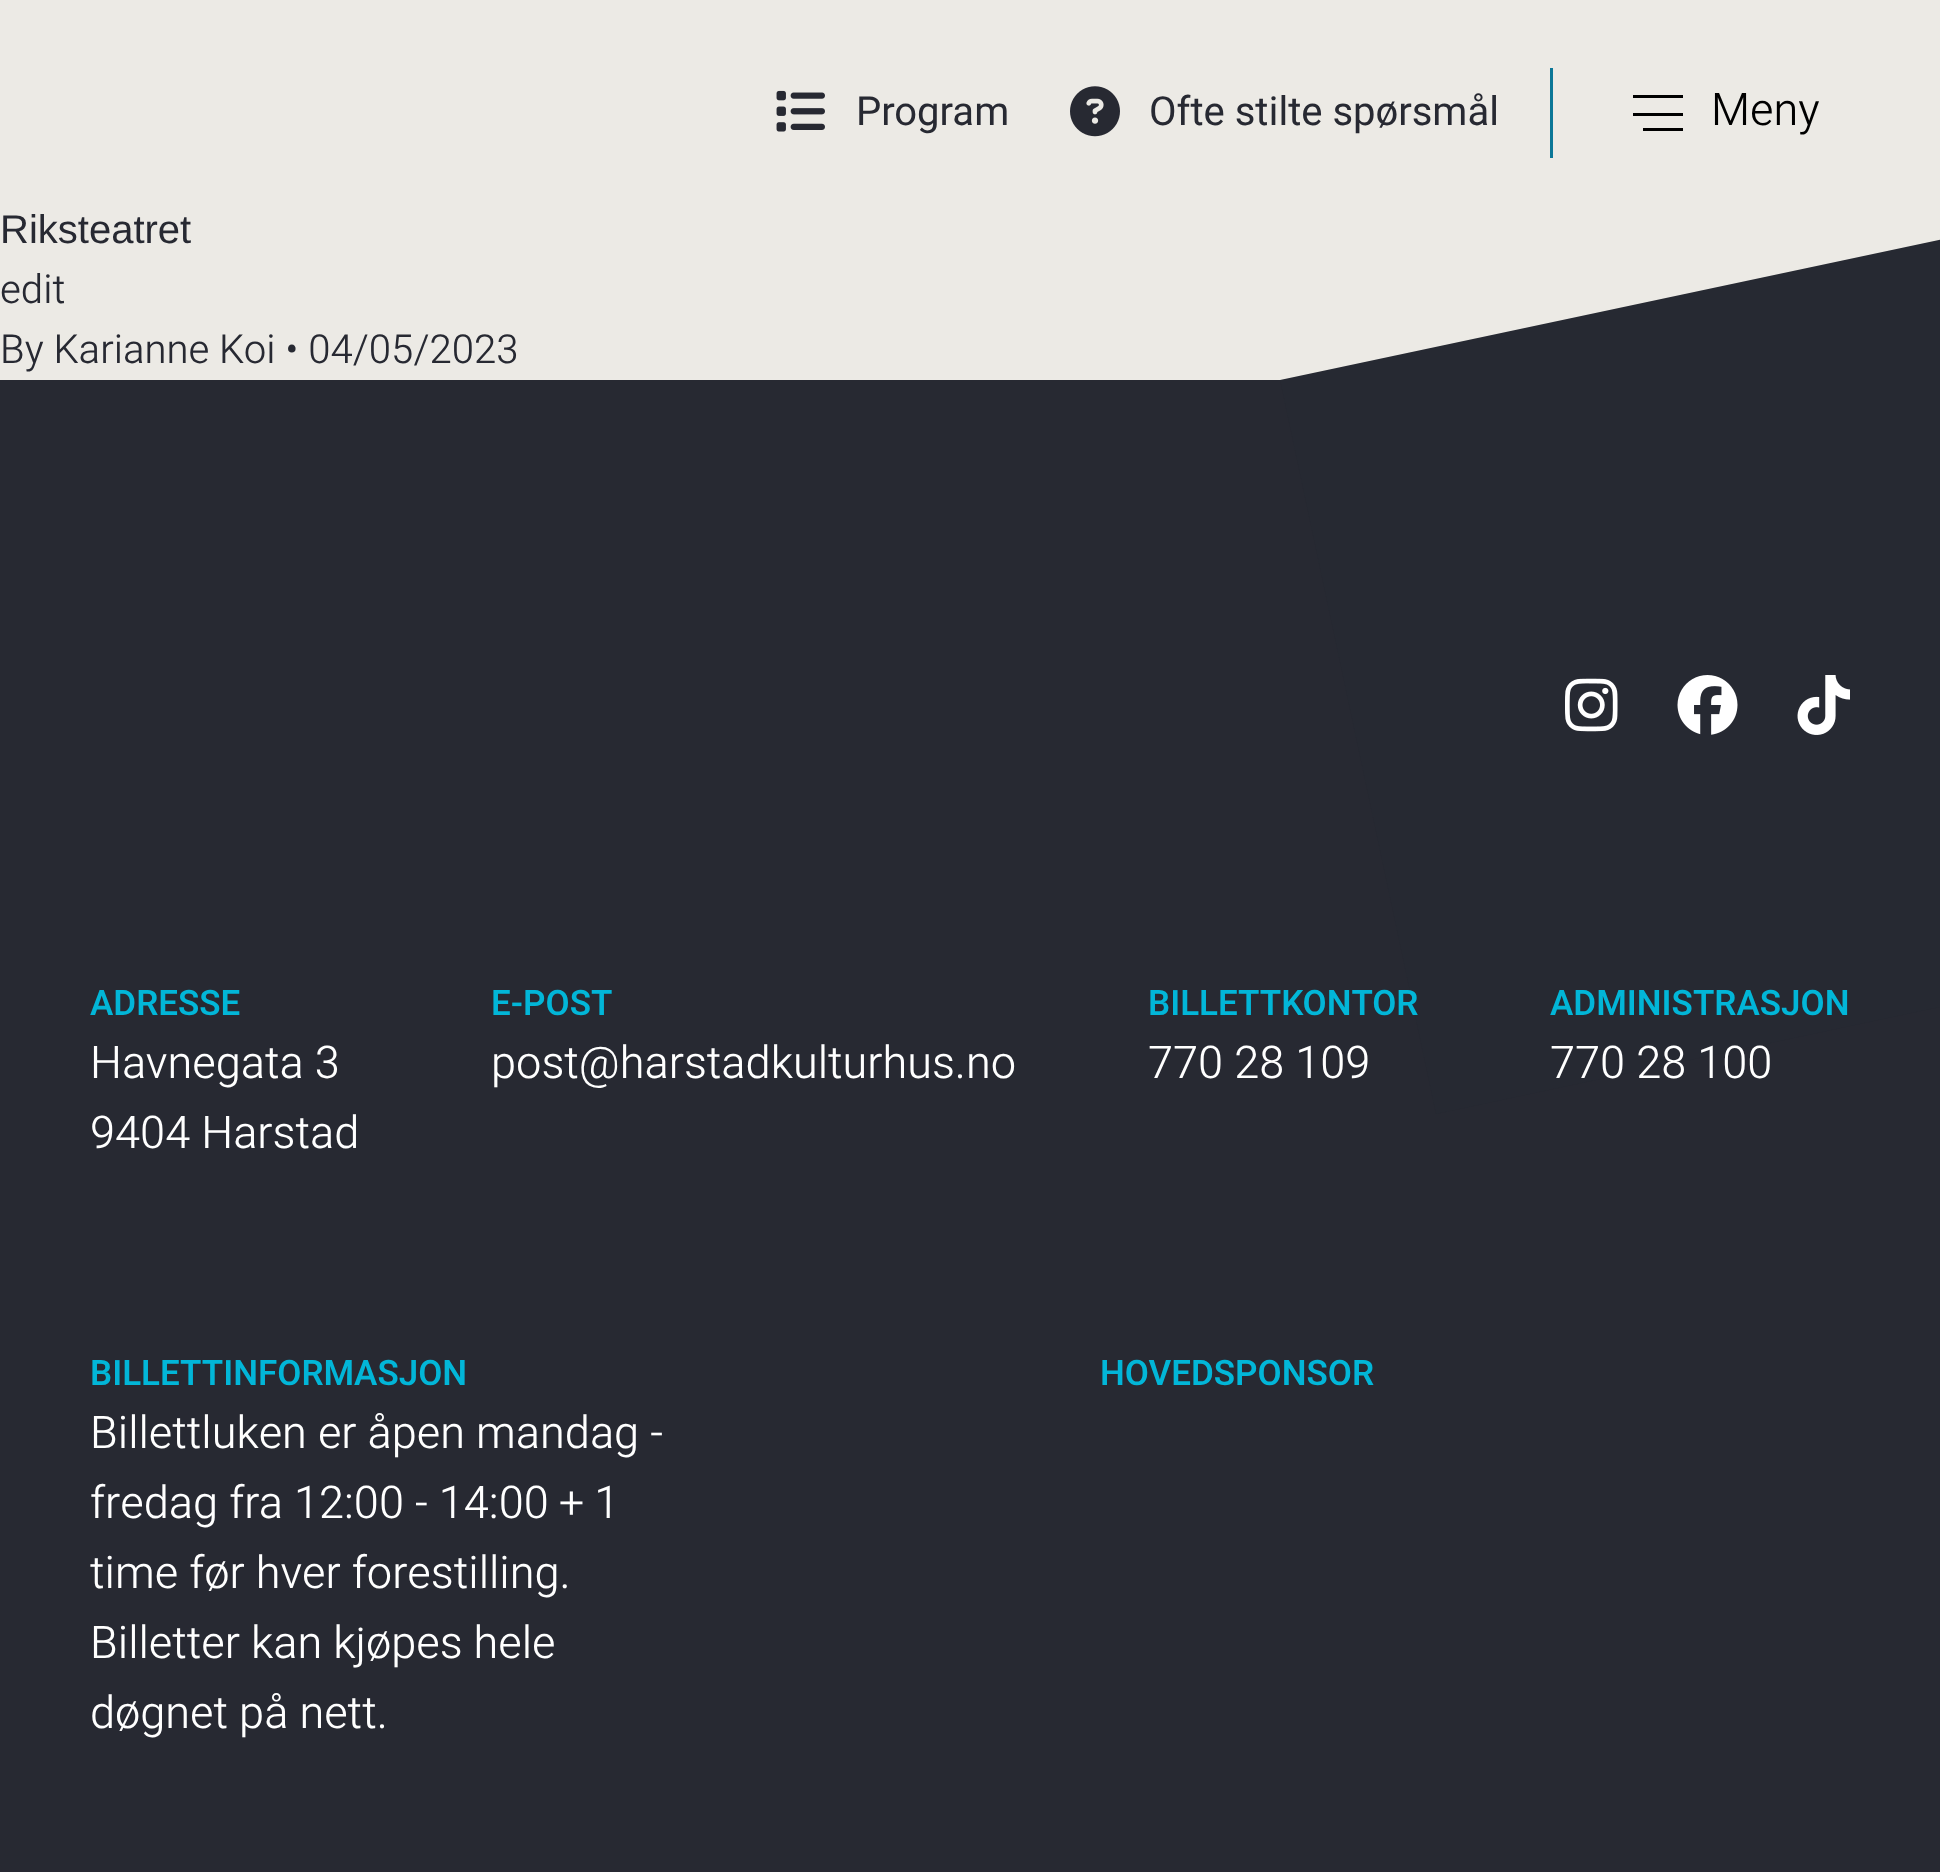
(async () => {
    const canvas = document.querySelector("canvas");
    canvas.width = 1940;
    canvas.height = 1872;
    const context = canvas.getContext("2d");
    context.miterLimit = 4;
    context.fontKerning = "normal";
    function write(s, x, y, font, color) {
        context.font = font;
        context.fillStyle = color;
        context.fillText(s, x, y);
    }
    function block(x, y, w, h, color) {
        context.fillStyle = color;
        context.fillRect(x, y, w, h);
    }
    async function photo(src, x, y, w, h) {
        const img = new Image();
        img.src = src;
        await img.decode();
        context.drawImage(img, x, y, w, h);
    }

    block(0, 0, 1940, 1872, "rgb(236, 234, 229)");
    block(1550, 68, 3, 90, "rgb(12, 119, 151)");
    await photo("media/1.png", 776, 90, 49, 42);
    write("Program", 856, 125, "40px Heebo", "rgb(39, 41, 50)");
    await photo("media/2.png", 1070, 86, 50, 51);
    write("Ofte stilte spørsmål", 1149, 125, "40px Heebo", "rgb(39, 41, 50)");
    block(1633, 95, 50, 3, "rgb(0, 0, 0)");
    block(1633, 113, 50, 3, "rgb(0, 0, 0)");
    block(1643, 128, 40, 3, "rgb(0, 0, 0)");
    write("Meny", 1711, 125, "300 45px Heebo", "rgb(0, 0, 0)");
    write("Riksteatret", 0, 243, "40px Liberation Sans", "rgb(39, 41, 50)");
    write("edit", 0, 303, "300 40px Heebo", "rgb(39, 41, 50)");
    write("By Karianne Koi • 04/05/2023", 0, 363, "300 40px Heebo", "rgb(39, 41, 50)");
    block(0, 380, 1940, 1492, "rgb(39, 41, 50)");
    context.fillStyle = "rgb(38, 41, 50)";
    context.beginPath();
    context.moveTo(1280, 380);
    context.lineTo(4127, -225);
    context.lineTo(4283, 509);
    context.lineTo(1436, 1114);
    context.closePath();
    context.fill();
    await photo("media/3.png", 1565, 678, 53, 54);
    await photo("media/4.png", 1677, 675, 61, 60);
    await photo("media/5.png", 1797, 675, 53, 60);
    write("ADRESSE", 90, 1015, "600 35px Heebo", "rgb(2, 182, 216)");
    write("Havnegata 3", 90, 1078, "300 45px Heebo", "rgb(255, 255, 255)");
    write("9404 Harstad", 90, 1148, "300 45px Heebo", "rgb(255, 255, 255)");
    write("E-POST", 491, 1015, "600 35px Heebo", "rgb(2, 182, 216)");
    write("post@harstadkulturhus.no", 491, 1078, "300 45px Heebo", "rgb(255, 255, 255)");
    write("BILLETTKONTOR", 1148, 1015, "600 35px Heebo", "rgb(2, 182, 216)");
    write("770 28 109", 1148, 1078, "300 45px Heebo", "rgb(255, 255, 255)");
    write("ADMINISTRASJON", 1550, 1015, "600 35px Heebo", "rgb(2, 182, 216)");
    write("770 28 100", 1550, 1078, "300 45px Heebo", "rgb(255, 255, 255)");
    write("BILLETTINFORMASJON", 90, 1385, "600 35px Heebo", "rgb(2, 182, 216)");
    write("Billettluken er åpen mandag -", 90, 1448, "300 45px Heebo", "rgb(255, 255, 255)");
    write("fredag fra 12:00 - 14:00 + 1", 90, 1518, "300 45px Heebo", "rgb(255, 255, 255)");
    write("time før hver forestilling.", 90, 1588, "300 45px Heebo", "rgb(255, 255, 255)");
    write("Billetter kan kjøpes hele", 90, 1658, "300 45px Heebo", "rgb(255, 255, 255)");
    write("døgnet på nett.", 90, 1728, "300 45px Heebo", "rgb(255, 255, 255)");
    write("HOVEDSPONSOR", 1100, 1385, "600 35px Heebo", "rgb(2, 182, 216)");
})();
